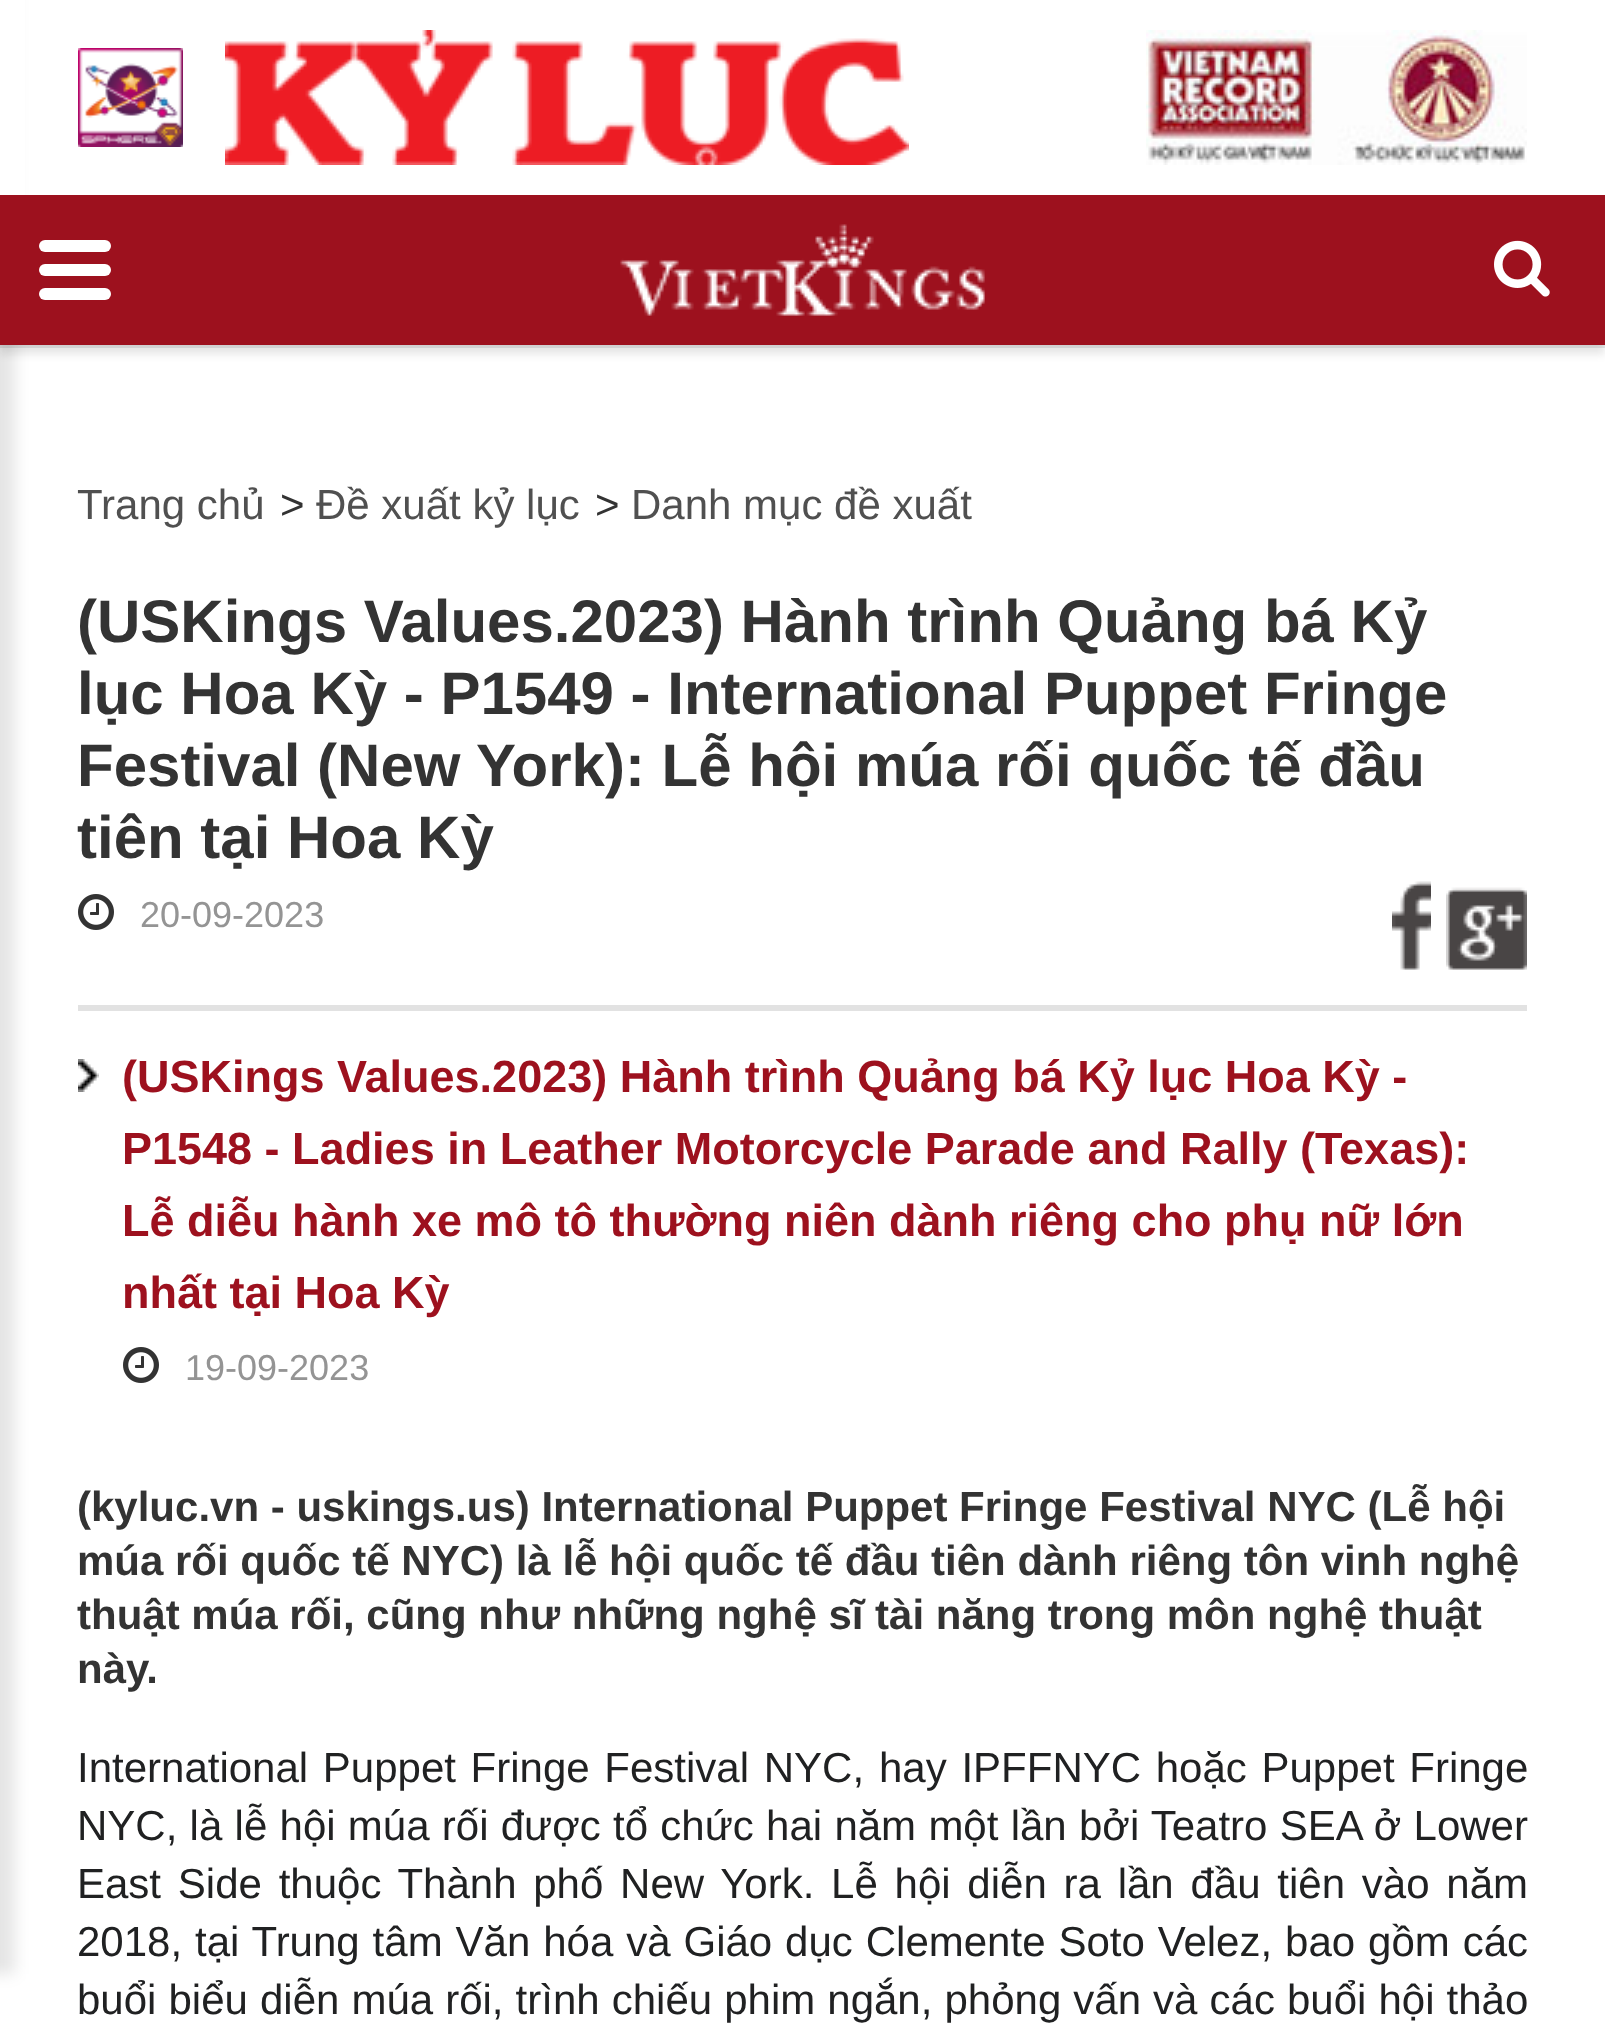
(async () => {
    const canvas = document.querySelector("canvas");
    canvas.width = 1605;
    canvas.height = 2024;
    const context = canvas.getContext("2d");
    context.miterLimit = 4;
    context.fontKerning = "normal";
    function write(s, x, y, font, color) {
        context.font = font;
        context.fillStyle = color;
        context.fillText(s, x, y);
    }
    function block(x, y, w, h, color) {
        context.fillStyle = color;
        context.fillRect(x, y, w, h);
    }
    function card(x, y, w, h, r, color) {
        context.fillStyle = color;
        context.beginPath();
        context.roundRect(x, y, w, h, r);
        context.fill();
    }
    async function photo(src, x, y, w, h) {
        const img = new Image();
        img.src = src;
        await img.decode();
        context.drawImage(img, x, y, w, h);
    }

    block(0, 0, 1605, 2024, "rgb(255, 255, 255)");
    await photo("media/1.png", 0, 345, 1605, 3);
    context.fillStyle = "rgba(0, 0, 0, 0.1)";
    context.filter = "blur(7.5px)";
    context.beginPath();
    context.rect(-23, -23, 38, 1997);
    context.fill();
    context.filter = "none";
    context.filter = "blur(4.5px)";
    context.beginPath();
    context.rect(0, 204, 1605, 150);
    context.fill();
    context.filter = "none";
    block(0, 195, 1605, 150, "rgb(157, 17, 30)");
    await photo("media/2.png", 620, 224, 365, 92);
    card(39, 264, 72, 12, 6, "rgb(255, 255, 255)");
    card(39, 240, 72, 12, 6, "rgb(255, 255, 255)");
    card(39, 288, 72, 12, 6, "rgb(255, 255, 255)");
    block(0, 0, 25, 195, "rgb(255, 255, 255)");
    await photo("media/3.png", 78, 48, 105, 99);
    await photo("media/4.png", 225, 30, 684, 135);
    await photo("media/5.png", 1146, 30, 381, 135);
    await photo("media/6.png", 1494, 240, 56, 57);
    write("Trang chủ", 77, 519, "42px Liberation Sans", "rgb(80, 80, 80)");
    write(">", 280, 519, "42px Liberation Sans", "rgb(51, 51, 51)");
    write("Đề xuất kỷ lục", 316, 519, "42px Liberation Sans", "rgb(80, 80, 80)");
    write(">", 595, 519, "42px Liberation Sans", "rgb(51, 51, 51)");
    write("Danh mục đề xuất", 631, 519, "42px Liberation Sans", "rgb(80, 80, 80)");
    block(78, 1005, 1449, 6, "rgb(226, 226, 226)");
    write("(USKings Values.2023) Hành trình Quảng bá Kỷ", 77, 642, "bold 60px Liberation Sans", "rgb(51, 51, 51)");
    write("lục Hoa Kỳ - P1549 - International Puppet Fringe", 77, 714, "bold 60px Liberation Sans", "rgb(51, 51, 51)");
    write("Festival (New York): Lễ hội múa rối quốc tế đầu", 77, 786, "bold 60px Liberation Sans", "rgb(51, 51, 51)");
    write("tiên tại Hoa Kỳ", 77, 858, "bold 60px Liberation Sans", "rgb(51, 51, 51)");
    await photo("media/7.png", 78, 894, 36, 36);
    write("20-09-2023", 140, 927, "36px Liberation Sans", "rgb(148, 148, 148)");
    await photo("media/8.png", 1392, 881, 39, 89);
    await photo("media/9.png", 1446, 887, 81, 83);
    await photo("media/10.png", 78, 1059, 21, 33);
    write("(USKings Values.2023) Hành trình Quảng bá Kỷ lục Hoa Kỳ -", 122, 1092, "bold 45px Liberation Sans", "rgb(157, 17, 30)");
    write("P1548 - Ladies in Leather Motorcycle Parade and Rally (Texas):", 122, 1164, "bold 45px Liberation Sans", "rgb(157, 17, 30)");
    write("Lễ diễu hành xe mô tô thường niên dành riêng cho phụ nữ lớn", 122, 1236, "bold 45px Liberation Sans", "rgb(157, 17, 30)");
    write("nhất tại Hoa Kỳ", 122, 1308, "bold 45px Liberation Sans", "rgb(157, 17, 30)");
    await photo("media/7.png", 123, 1347, 36, 36);
    write("19-09-2023", 185, 1380, "36px Liberation Sans", "rgb(148, 148, 148)");
    write("(kyluc.vn - uskings.us) International Puppet Fringe Festival NYC (Lễ hội", 77, 1521, "bold 42px Liberation Sans", "rgb(51, 51, 51)");
    write("múa rối quốc tế NYC) là lễ hội quốc tế đầu tiên dành riêng tôn vinh nghệ", 77, 1575, "bold 42px Liberation Sans", "rgb(51, 51, 51)");
    write("thuật múa rối, cũng như những nghệ sĩ tài năng trong môn nghệ thuật", 77, 1629, "bold 42px Liberation Sans", "rgb(51, 51, 51)");
    write("này.", 77, 1683, "bold 42px Liberation Sans", "rgb(51, 51, 51)");
    context.wordSpacing = "3px";
    write("International Puppet Fringe Festival NYC,", 77, 1782, "42px Liberation Sans", "rgb(32, 33, 34)");
    write("hay IPFFNYC hoặc Puppet Fringe", 879, 1782, "42px Liberation Sans", "rgb(32, 33, 34)");
    context.wordSpacing = "0.6px";
    write("NYC, là lễ hội múa rối được tổ chức hai năm một lần bởi Teatro SEA ở Lower", 77, 1840, "42px Liberation Sans", "rgb(32, 33, 34)");
    context.wordSpacing = "5.1px";
    write("East Side thuộc Thành phố New York. Lễ hội diễn ra lần đầu tiên vào năm", 77, 1898, "42px Liberation Sans", "rgb(32, 33, 34)");
    context.wordSpacing = "1.25px";
    write("2018, tại Trung tâm Văn hóa và Giáo dục Clemente Soto Velez, bao gồm các", 77, 1956, "42px Liberation Sans", "rgb(32, 33, 34)");
    context.wordSpacing = "0.4px";
    write("buổi biểu diễn múa rối, trình chiếu phim ngắn, phỏng vấn và các buổi hội thảo", 77, 2014, "42px Liberation Sans", "rgb(32, 33, 34)");
})();
